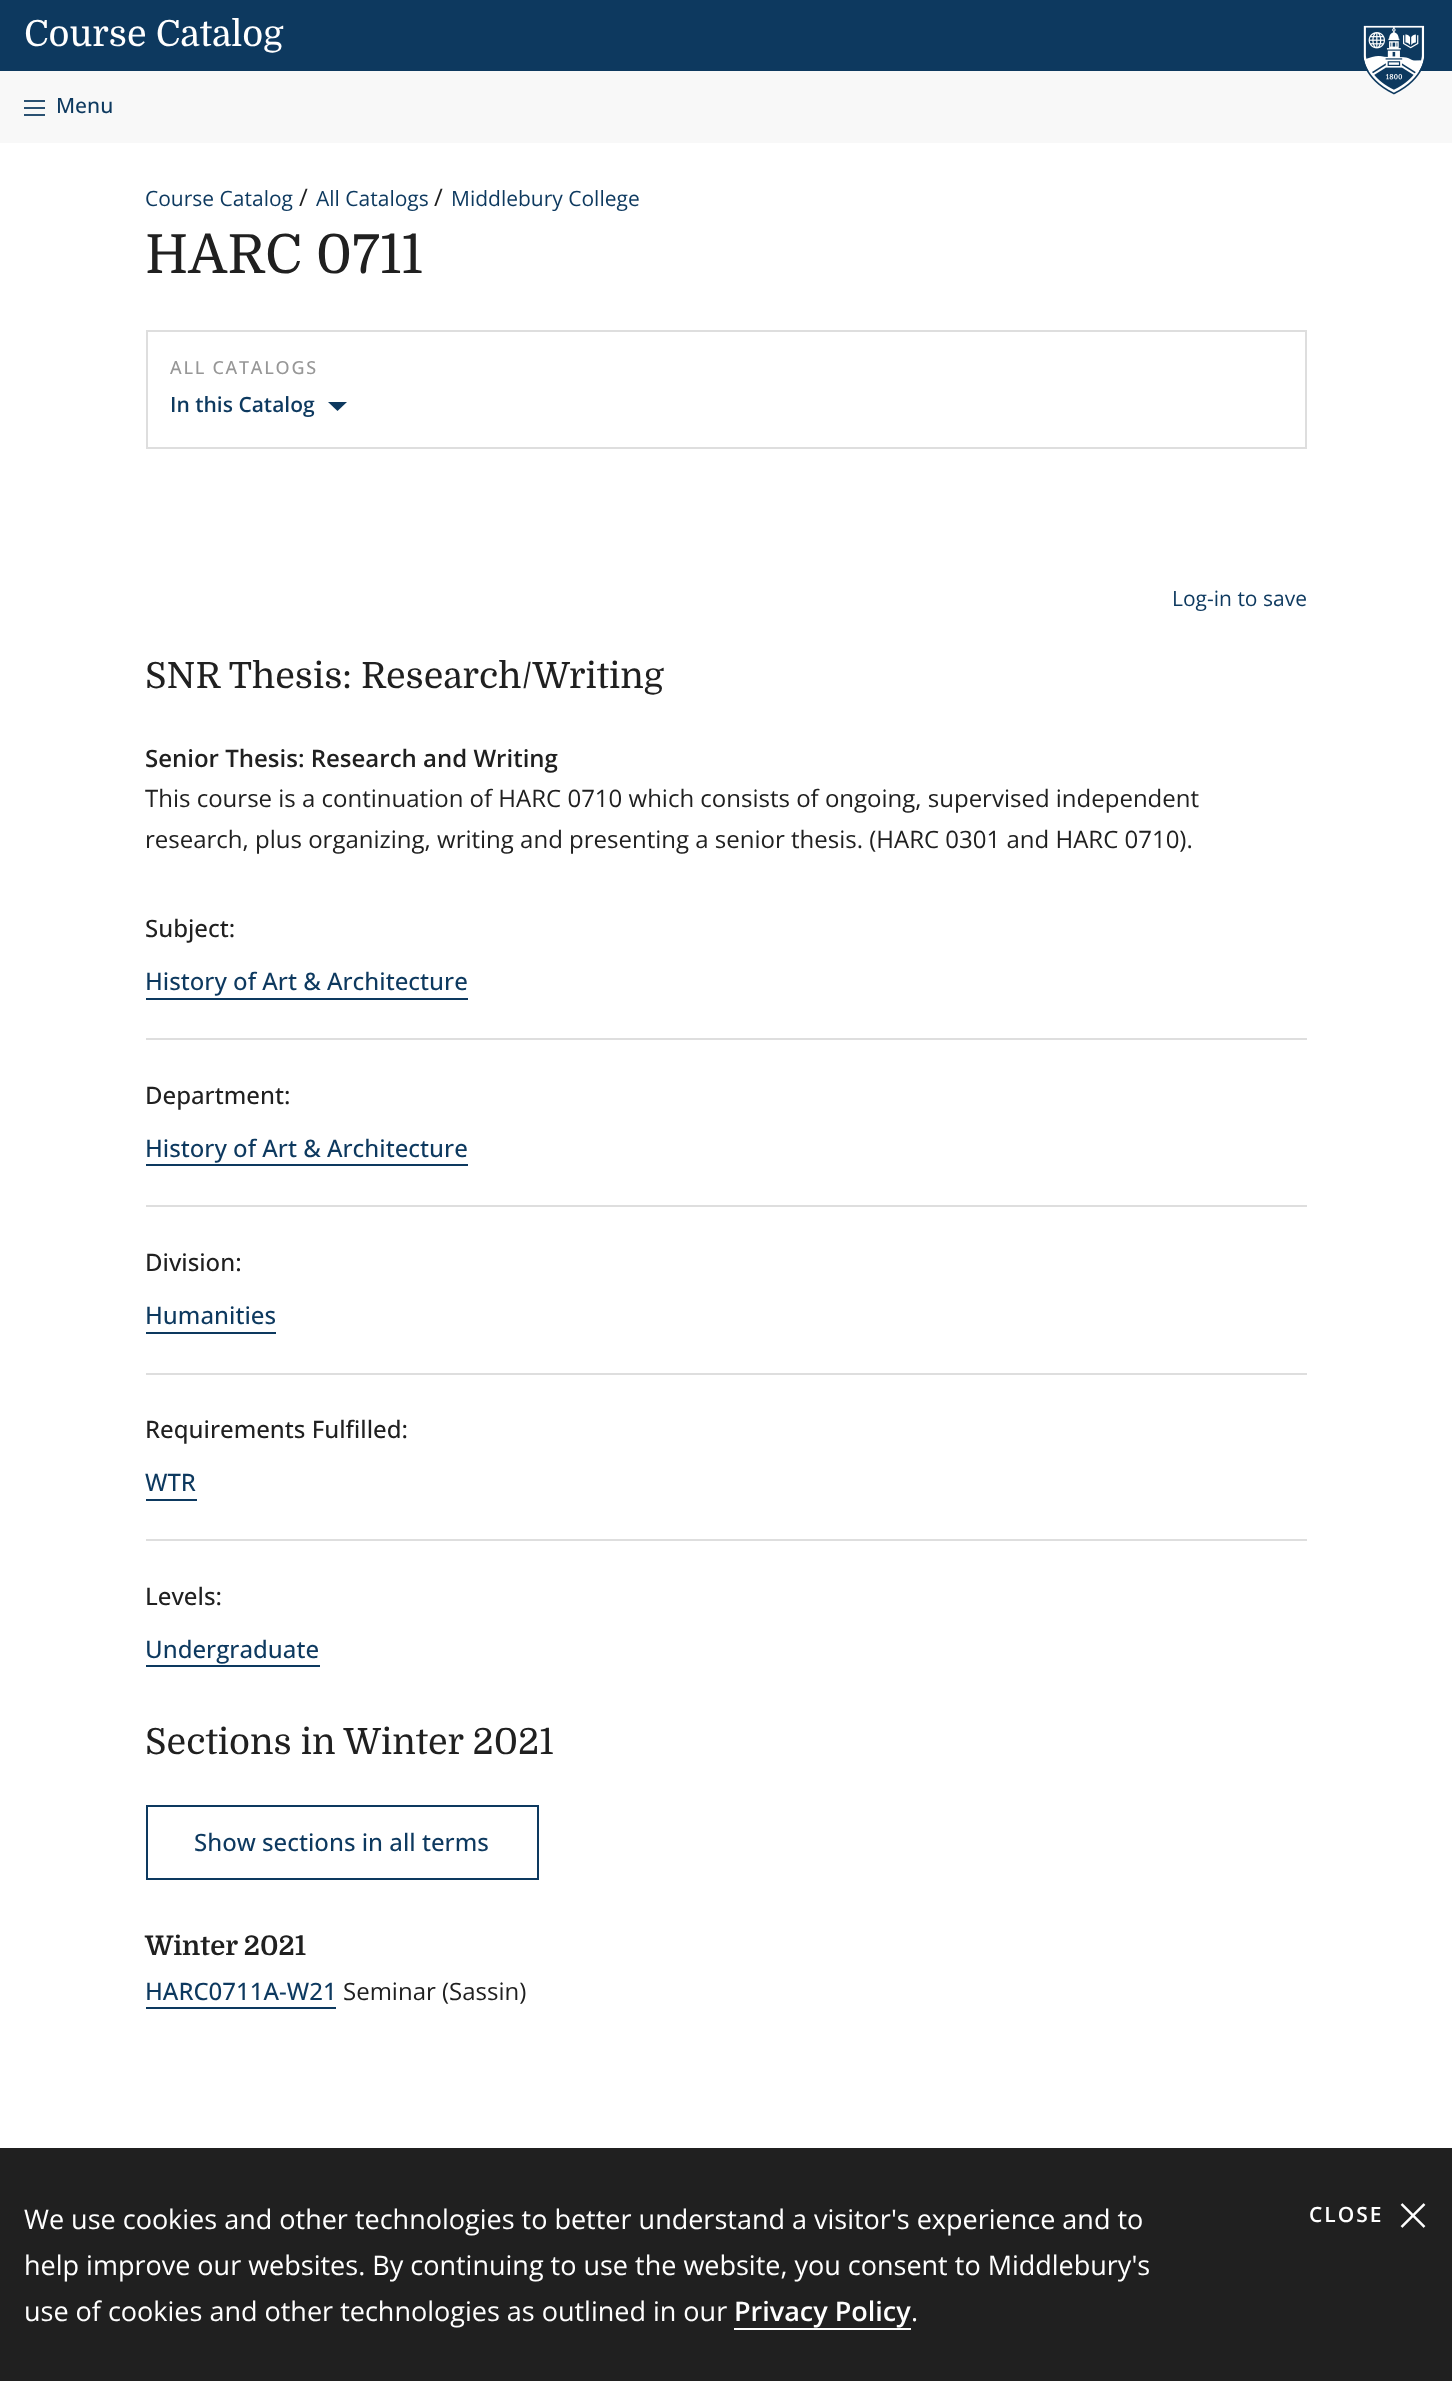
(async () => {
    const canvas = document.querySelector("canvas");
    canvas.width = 1452;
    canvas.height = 2381;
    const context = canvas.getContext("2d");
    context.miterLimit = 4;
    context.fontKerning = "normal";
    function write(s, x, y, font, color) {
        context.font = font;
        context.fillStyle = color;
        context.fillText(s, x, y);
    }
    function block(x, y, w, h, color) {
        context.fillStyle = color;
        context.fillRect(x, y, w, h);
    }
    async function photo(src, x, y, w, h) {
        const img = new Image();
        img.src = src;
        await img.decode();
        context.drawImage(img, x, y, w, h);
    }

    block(0, 0, 1452, 2381, "rgb(255, 255, 255)");
    block(0, 0, 1452, 71, "rgb(13, 57, 95)");
    write("Course Catalog", 24, 46, "36px Domine", "rgb(255, 255, 255)");
    block(0, 71, 1452, 72, "rgb(248, 248, 248)");
    await photo("media/1.png", 1363, 25, 62, 70);
    await photo("media/2.png", 24, 100, 21, 16);
    write("Menu", 56, 113, "500 21px Open Sans", "rgb(13, 57, 95)");
    write("Course Catalog", 145, 206, "21px Open Sans", "rgb(13, 57, 95)");
    write("/", 299, 206, "24px Open Sans", "rgb(32, 32, 32)");
    write("All Catalogs", 316, 206, "21px Open Sans", "rgb(13, 57, 95)");
    write("/", 434, 206, "24px Open Sans", "rgb(32, 32, 32)");
    write("Middlebury College", 451, 206, "21px Open Sans", "rgb(13, 57, 95)");
    write("HARC 0711", 145, 273, "54px Domine", "rgb(32, 32, 32)");
    context.strokeStyle = "rgb(222, 222, 222)";
    context.lineWidth = 2;
    context.strokeRect(147, 331, 1159, 117);
    context.letterSpacing = "1.75px";
    write("ALL CATALOGS", 170, 374, "500 18px Open Sans", "rgb(151, 151, 151)");
    context.letterSpacing = "0px";
    write("In this Catalog", 170, 412, "600 21px Open Sans", "rgb(13, 57, 95)");
    context.beginPath();
    context.moveTo(347, 402);
    context.lineTo(337.5, 411);
    context.lineTo(328, 402);
    context.closePath();
    context.fill("evenodd");
    write("Log-in to save", 1172, 606, "21px Open Sans", "rgb(13, 57, 95)");
    write("SNR Thesis: Research/Writing", 145, 688, "36px Domine", "rgb(32, 32, 32)");
    write("Senior Thesis: Research and Writing", 145, 767, "600 24px Open Sans", "rgb(32, 32, 32)");
    write("This course is a continuation of HARC 0710 which consists of ongoing, supervised independent", 145, 807, "24px Open Sans", "rgb(32, 32, 32)");
    write("research, plus organizing, writing and presenting a senior thesis. (HARC 0301 and HARC 0710).", 145, 848, "24px Open Sans", "rgb(32, 32, 32)");
    write("Subject:", 145, 937, "500 24px Open Sans", "rgb(32, 32, 32)");
    block(146, 1038, 1161, 2, "rgb(222, 222, 222)");
    write("History of Art & Architecture", 145, 990, "500 24px Open Sans", "rgb(13, 57, 95)");
    block(146, 998, 322, 2, "rgb(13, 57, 95)");
    write("Department:", 145, 1104, "500 24px Open Sans", "rgb(32, 32, 32)");
    block(146, 1205, 1161, 2, "rgb(222, 222, 222)");
    write("History of Art & Architecture", 145, 1157, "500 24px Open Sans", "rgb(13, 57, 95)");
    block(146, 1164, 322, 2, "rgb(13, 57, 95)");
    write("Division:", 145, 1271, "500 24px Open Sans", "rgb(32, 32, 32)");
    block(146, 1373, 1161, 2, "rgb(222, 222, 222)");
    write("Humanities", 145, 1324, "500 24px Open Sans", "rgb(13, 57, 95)");
    block(146, 1332, 130, 2, "rgb(13, 57, 95)");
    write("Requirements Fulfilled:", 145, 1438, "500 24px Open Sans", "rgb(32, 32, 32)");
    block(146, 1539, 1161, 2, "rgb(222, 222, 222)");
    write("WTR", 145, 1491, "500 24px Open Sans", "rgb(13, 57, 95)");
    block(146, 1499, 51, 2, "rgb(13, 57, 95)");
    write("Levels:", 145, 1605, "500 24px Open Sans", "rgb(32, 32, 32)");
    write("Undergraduate", 145, 1658, "500 24px Open Sans", "rgb(13, 57, 95)");
    block(146, 1665, 174, 2, "rgb(13, 57, 95)");
    write("Sections in Winter 2021", 145, 1754, "36px Domine", "rgb(32, 32, 32)");
    context.strokeStyle = "rgb(13, 57, 95)";
    context.strokeRect(147, 1806, 391, 73);
    write("Show sections in all terms", 194, 1851, "500 24px Open Sans", "rgb(13, 57, 95)");
    write("Winter 2021", 145, 1955, "bold 27px Domine", "rgb(32, 32, 32)");
    write("HARC0711A-W21", 145, 2000, "500 24px Open Sans", "rgb(13, 57, 95)");
    block(146, 2007, 190, 2, "rgb(13, 57, 95)");
    write("Seminar (Sassin)", 343, 2000, "24px Open Sans", "rgb(32, 32, 32)");
    block(0, 2148, 1452, 233, "rgb(32, 32, 32)");
    write("We use cookies and other technologies to better understand a visitor's experience and to", 24, 2229, "27px Open Sans", "rgb(255, 255, 255)");
    write("help improve our websites. By continuing to use the website, you consent to Middlebury's", 24, 2275, "27px Open Sans", "rgb(255, 255, 255)");
    write("use of cookies and other technologies as outlined in our", 24, 2321, "27px Open Sans", "rgb(255, 255, 255)");
    write("Privacy Policy", 734, 2321, "600 27px Open Sans", "rgb(255, 255, 255)");
    block(734, 2328, 177, 2, "rgb(255, 255, 255)");
    write(".", 911, 2321, "27px Open Sans", "rgb(255, 255, 255)");
    context.letterSpacing = "2px";
    write("CLOSE", 1309, 2222, "600 21px Open Sans", "rgb(255, 255, 255)");
    await photo("media/3.png", 1400, 2203, 26, 25);
})();
